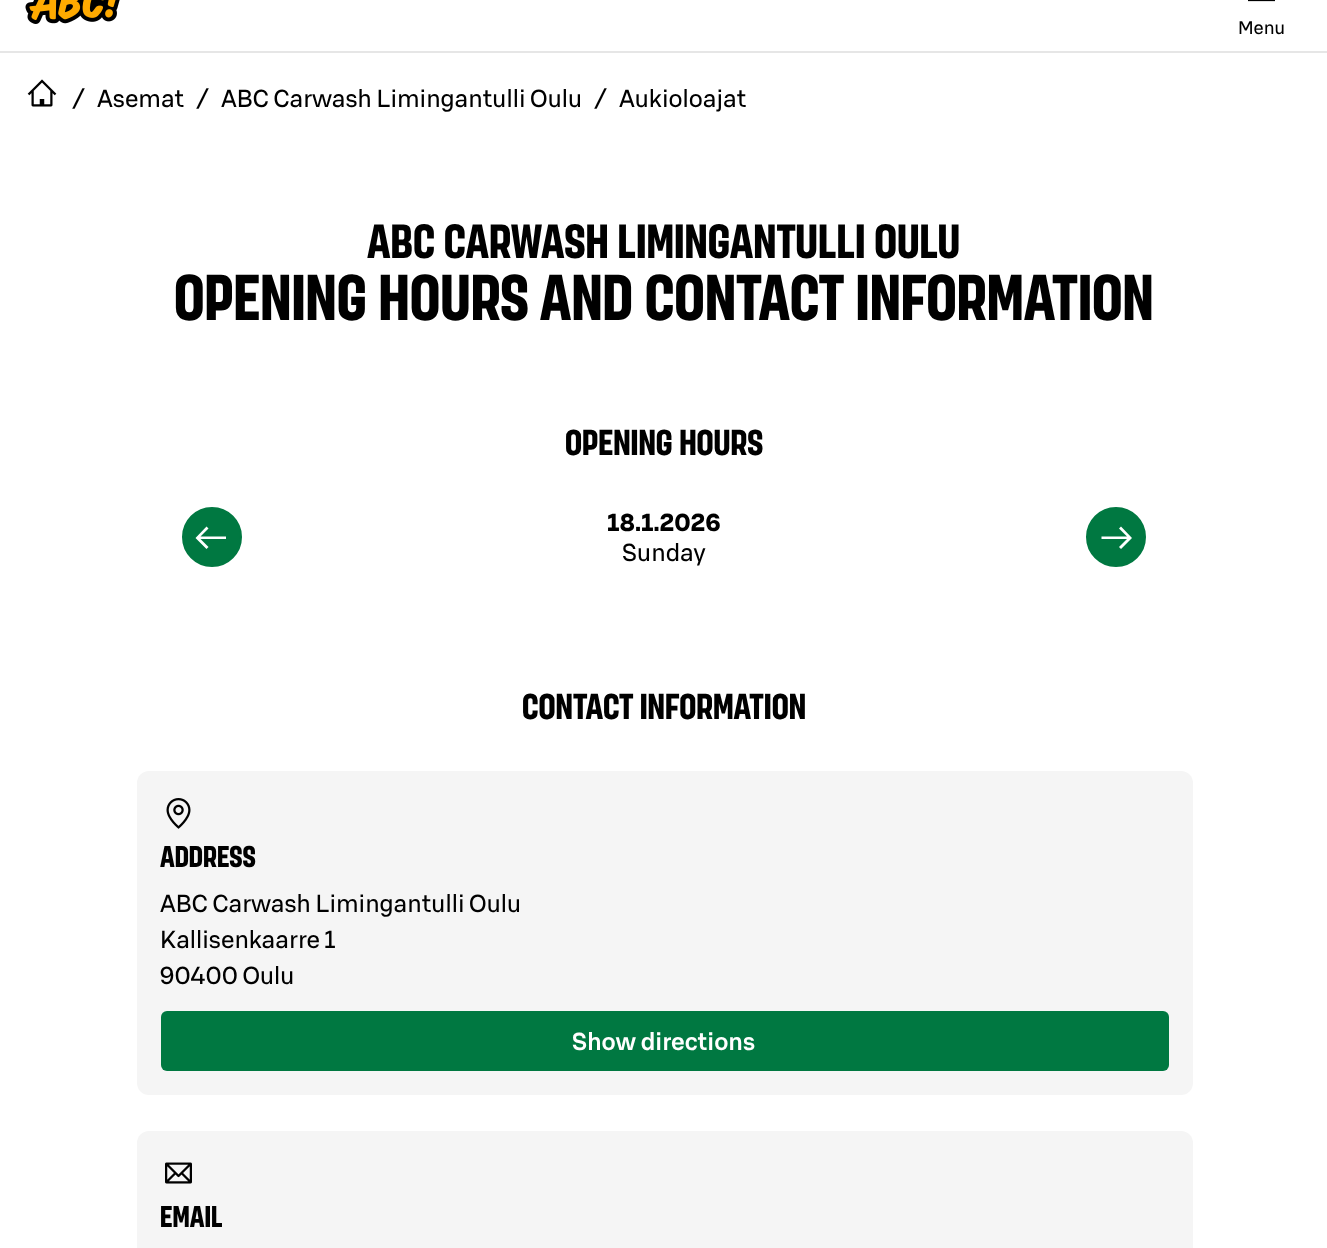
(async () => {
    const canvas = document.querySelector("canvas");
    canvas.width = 1327;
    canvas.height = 1248;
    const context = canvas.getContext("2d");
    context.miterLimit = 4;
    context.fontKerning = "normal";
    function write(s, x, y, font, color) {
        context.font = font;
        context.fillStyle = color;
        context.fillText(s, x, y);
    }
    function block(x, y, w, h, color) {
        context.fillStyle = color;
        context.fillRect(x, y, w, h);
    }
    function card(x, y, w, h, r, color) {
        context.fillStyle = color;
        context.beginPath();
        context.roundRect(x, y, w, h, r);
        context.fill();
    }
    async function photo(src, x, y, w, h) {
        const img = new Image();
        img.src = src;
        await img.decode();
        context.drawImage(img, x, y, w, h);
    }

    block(0, 0, 1327, 1248, "rgb(255, 255, 255)");
    block(0, 51, 1327, 2, "rgb(230, 230, 230)");
    await photo("media/1.png", 25, 0, 95, 24);
    await photo("media/2.png", 1248, 0, 27, 2);
    write("Menu", 1238, 34, "18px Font", "rgb(0, 0, 0)");
    await photo("media/3.png", 27, 79, 30, 28);
    write("/", 72, 107, "24px Font", "rgb(0, 0, 0)");
    write("Asemat", 97, 107, "24px Font", "rgb(0, 0, 0)");
    write("/", 196, 107, "24px Font", "rgb(0, 0, 0)");
    write("ABC Carwash Limingantulli Oulu", 221, 107, "24px Font", "rgb(0, 0, 0)");
    write("/", 594, 107, "24px Font", "rgb(0, 0, 0)");
    write("Aukioloajat", 619, 107, "24px Font", "rgb(0, 0, 0)");
    write("ABC CARWASH LIMINGANTULLI OULU", 367, 258, "bold 48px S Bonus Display", "rgb(0, 0, 0)");
    write("OPENING HOURS AND CONTACT INFORMATION", 174, 320, "bold 64.5px S Bonus Display", "rgb(0, 0, 0)");
    write("OPENING HOURS", 565, 455, "bold 36px S Bonus Display", "rgb(0, 0, 0)");
    context.fillStyle = "rgb(0, 120, 65)";
    context.beginPath();
    context.arc(212, 537, 29, 0, Math.PI * 2);
    context.fill();
    context.strokeStyle = "rgb(0, 120, 65)";
    context.lineWidth = 2;
    context.stroke();
    context.fillStyle = "rgb(255, 255, 255)";
    context.beginPath();
    context.moveTo(200.5, 536.5);
    context.lineTo(226, 536.5);
    context.lineTo(226, 539);
    context.lineTo(200.5, 539);
    context.lineTo(208.5, 547);
    context.lineTo(206.5, 549);
    context.lineTo(195.5, 538);
    context.lineTo(206.5, 526.5);
    context.lineTo(208.5, 528.5);
    context.closePath();
    context.fill("evenodd");
    write("18.1.2026", 607, 531, "bold 24px Font", "rgb(0, 0, 0)");
    write("Sunday", 622, 561, "24px Font", "rgb(0, 0, 0)");
    context.fillStyle = "rgb(0, 120, 65)";
    context.beginPath();
    context.arc(1116, 537, 29, 0, Math.PI * 2);
    context.fill();
    context.stroke();
    context.fillStyle = "rgb(255, 255, 255)";
    context.beginPath();
    context.moveTo(1127, 539);
    context.lineTo(1101.5, 539);
    context.lineTo(1101.5, 536.5);
    context.lineTo(1127, 536.5);
    context.lineTo(1119, 528.5);
    context.lineTo(1121, 526.5);
    context.lineTo(1132, 538);
    context.lineTo(1121, 549);
    context.lineTo(1119, 547);
    context.closePath();
    context.fill("evenodd");
    write("CONTACT INFORMATION", 522, 719, "bold 36px S Bonus Display", "rgb(0, 0, 0)");
    card(137, 771, 1056, 324, 12, "rgb(245, 245, 245)");
    await photo("media/4.png", 166, 798, 25, 31);
    write("ADDRESS", 160, 867, "bold 30px S Bonus Display", "rgb(0, 0, 0)");
    write("ABC Carwash Limingantulli Oulu", 160, 912, "24px Font", "rgb(0, 0, 0)");
    write("Kallisenkaarre 1", 160, 948, "24px Font", "rgb(0, 0, 0)");
    write("90400 Oulu", 160, 984, "24px Font", "rgb(0, 0, 0)");
    card(161, 1011, 1008, 60, 6, "rgb(0, 120, 65)");
    write("Show directions", 572, 1050, "500 24px Font", "rgb(255, 255, 255)");
    card(137, 1131, 1056, 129, 12, "rgb(245, 245, 245)");
    await photo("media/5.png", 165, 1162, 27, 22);
    write("EMAIL", 160, 1227, "bold 30px S Bonus Display", "rgb(0, 0, 0)");
})();
